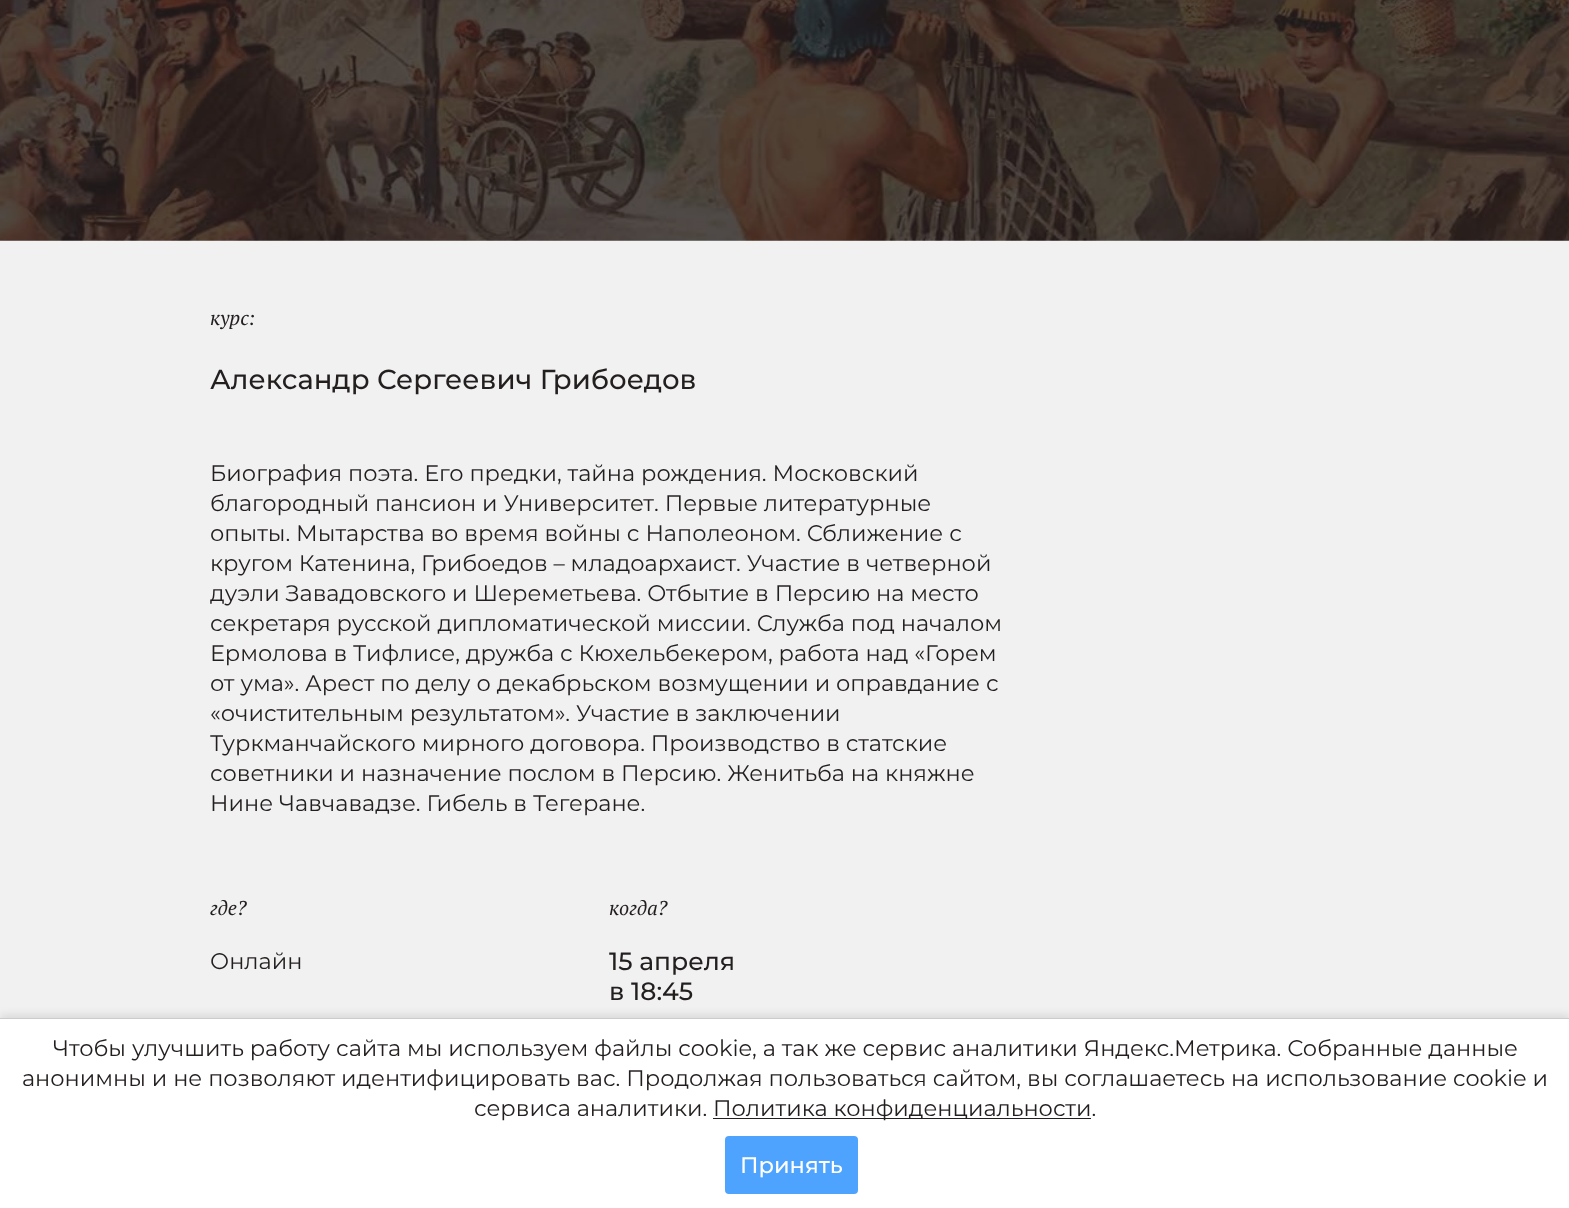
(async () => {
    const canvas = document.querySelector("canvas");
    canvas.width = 1569;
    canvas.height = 1208;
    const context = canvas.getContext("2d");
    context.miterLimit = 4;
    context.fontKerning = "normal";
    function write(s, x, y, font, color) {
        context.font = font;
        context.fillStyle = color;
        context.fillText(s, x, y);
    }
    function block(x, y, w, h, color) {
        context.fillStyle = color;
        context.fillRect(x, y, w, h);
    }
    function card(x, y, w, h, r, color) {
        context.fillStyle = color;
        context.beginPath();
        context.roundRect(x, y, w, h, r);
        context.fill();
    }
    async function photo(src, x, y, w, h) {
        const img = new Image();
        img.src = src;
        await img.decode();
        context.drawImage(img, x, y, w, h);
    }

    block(0, 0, 1569, 1208, "rgb(241, 241, 241)");
    await photo("media/1.png", 0, 0, 1569, 241);
    write("курс:", 210, 325, "italic 20px PT Serif", "rgb(36, 31, 31)");
    write("Александр Сергеевич Грибоедов", 210, 389, "500 27.5px Montserrat", "rgb(36, 31, 31)");
    write("Биография поэта. Его предки, тайна рождения. Московский", 210, 481, "22.5px Montserrat", "rgb(36, 31, 31)");
    write("благородный пансион и Университет. Первые литературные", 210, 511, "22.5px Montserrat", "rgb(36, 31, 31)");
    write("опыты. Мытарства во время войны с Наполеоном. Сближение с", 210, 541, "22.5px Montserrat", "rgb(36, 31, 31)");
    write("кругом Катенина, Грибоедов – младоархаист. Участие в четверной", 210, 571, "22.5px Montserrat", "rgb(36, 31, 31)");
    write("дуэли Завадовского и Шереметьева. Отбытие в Персию на место", 210, 601, "22.5px Montserrat", "rgb(36, 31, 31)");
    write("секретаря русской дипломатической миссии. Служба под началом", 210, 631, "22.5px Montserrat", "rgb(36, 31, 31)");
    write("Ермолова в Тифлисе, дружба с Кюхельбекером, работа над «Горем", 210, 661, "22.5px Montserrat", "rgb(36, 31, 31)");
    write("от ума». Арест по делу о декабрьском возмущении и оправдание с", 210, 691, "22.5px Montserrat", "rgb(36, 31, 31)");
    write("«очистительным результатом». Участие в заключении", 210, 721, "22.5px Montserrat", "rgb(36, 31, 31)");
    write("Туркманчайского мирного договора. Производство в статские", 210, 751, "22.5px Montserrat", "rgb(36, 31, 31)");
    write("советники и назначение послом в Персию. Женитьба на княжне", 210, 781, "22.5px Montserrat", "rgb(36, 31, 31)");
    write("Нине Чавчавадзе. Гибель в Тегеране.", 210, 811, "22.5px Montserrat", "rgb(36, 31, 31)");
    write("где?", 210, 915, "italic 20px PT Serif", "rgb(36, 31, 31)");
    write("Онлайн", 210, 969, "22.5px Montserrat", "rgb(36, 31, 31)");
    write("когда?", 609, 915, "italic 20px PT Serif", "rgb(36, 31, 31)");
    write("15 апреля", 609, 970, "500 25px Montserrat", "rgb(36, 31, 31)");
    write("в 18:45", 609, 1000, "500 25px Montserrat", "rgb(36, 31, 31)");
    context.fillStyle = "rgba(0, 0, 0, 0.1)";
    context.filter = "blur(4px)";
    context.beginPath();
    context.rect(0, 1015, 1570, 191);
    context.fill();
    context.filter = "none";
    block(0, 1019, 1569, 189, "rgb(255, 255, 255)");
    block(0, 1018, 1569, 1, "rgb(204, 204, 204)");
    write("Чтобы улучшить работу сайта мы используем файлы cookie, а так же сервис аналитики Яндекс.Метрика. Собранные данные", 53, 1056, "22.5px Montserrat", "rgb(36, 31, 31)");
    write("анонимны и не позволяют идентифицировать вас. Продолжая пользоваться сайтом, вы соглашаетесь на использование cookie и", 22, 1086, "22.5px Montserrat", "rgb(36, 31, 31)");
    write("сервиса аналитики.", 474, 1116, "22.5px Montserrat", "rgb(36, 31, 31)");
    block(713, 1118, 378, 1, "rgb(36, 31, 31)");
    write("Политика конфиденциальности.", 713, 1116, "22.5px Montserrat", "rgb(36, 31, 31)");
    card(725, 1136, 133, 58, 4, "rgb(78, 163, 255)");
    write("Принять", 740, 1173, "500 22.5px Montserrat", "rgb(255, 255, 255)");
})();
